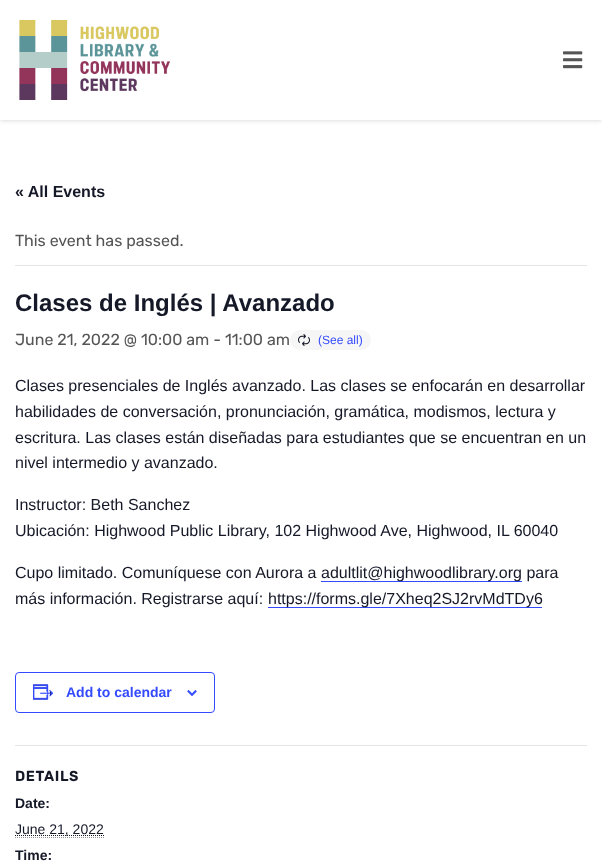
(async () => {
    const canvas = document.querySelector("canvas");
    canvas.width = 602;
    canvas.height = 861;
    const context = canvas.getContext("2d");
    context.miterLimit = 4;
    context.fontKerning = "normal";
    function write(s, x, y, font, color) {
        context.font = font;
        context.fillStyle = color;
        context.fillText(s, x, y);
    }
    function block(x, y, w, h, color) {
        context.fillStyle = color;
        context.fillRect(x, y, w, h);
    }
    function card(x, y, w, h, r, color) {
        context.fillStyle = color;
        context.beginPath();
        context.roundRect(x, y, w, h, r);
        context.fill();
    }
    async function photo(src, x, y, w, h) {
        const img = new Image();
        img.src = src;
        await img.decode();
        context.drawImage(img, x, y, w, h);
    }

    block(0, 0, 602, 861, "rgb(255, 255, 255)");
    context.fillStyle = "rgba(0, 0, 0, 0.19)";
    context.filter = "blur(2.5px)";
    context.beginPath();
    context.rect(0, 0, 602, 120);
    context.fill();
    context.filter = "none";
    block(0, 0, 602, 120, "rgb(255, 255, 255)");
    await photo("media/1.png", 19, 20, 152, 80);
    await photo("media/2.png", 563, 51, 20, 18);
    write("« All Events", 15, 197, "bold 16px Liberation Sans", "rgb(20, 24, 39)");
    block(15, 265, 572, 1, "rgb(228, 228, 228)");
    write("This event has passed.", 15, 246, "16px Rubik", "rgb(85, 85, 85)");
    write("Clases de Inglés | Avanzado", 15, 311, "bold 24px Liberation Sans", "rgb(20, 24, 39)");
    write("June 21, 2022 @ 10:00 am - 11:00 am", 15, 345, "16px Rubik", "rgb(85, 85, 85)");
    card(290, 330, 81, 20, 10, "rgb(247, 246, 246)");
    await photo("media/3.png", 298, 334, 12, 12);
    write("(See all)", 318, 344, "12px Liberation Sans", "rgb(51, 74, 255)");
    write("Clases presenciales de Inglés avanzado. Las clases se enfocarán en desarrollar", 15, 391, "16px Liberation Sans", "rgb(20, 24, 39)");
    write("habilidades de conversación, pronunciación, gramática, modismos, lectura y", 15, 417, "16px Liberation Sans", "rgb(20, 24, 39)");
    write("escritura. Las clases están diseñadas para estudiantes que se encuentran en un", 15, 443, "16px Liberation Sans", "rgb(20, 24, 39)");
    write("nivel intermedio y avanzado.", 15, 468, "16px Liberation Sans", "rgb(20, 24, 39)");
    write("Instructor: Beth Sanchez", 15, 510, "16px Liberation Sans", "rgb(20, 24, 39)");
    write("Ubicación: Highwood Public Library, 102 Highwood Ave, Highwood, IL 60040", 15, 536, "16px Liberation Sans", "rgb(20, 24, 39)");
    write("Cupo limitado. Comuníquese con Aurora a", 15, 578, "16px Liberation Sans", "rgb(20, 24, 39)");
    block(321, 581, 201, 1, "rgb(51, 74, 255)");
    write("adultlit@highwoodlibrary.org para", 321, 578, "16px Liberation Sans", "rgb(20, 24, 39)");
    write("más información. Registrarse aquí:", 15, 604, "16px Liberation Sans", "rgb(20, 24, 39)");
    block(268, 607, 274, 1, "rgb(51, 74, 255)");
    write("https://forms.gle/7Xheq2SJ2rvMdTDy6", 268, 604, "16px Liberation Sans", "rgb(20, 24, 39)");
    context.beginPath();
    context.roundRect(15.5, 672.5, 199, 40, 3.5);
    context.strokeStyle = "rgb(51, 74, 255)";
    context.stroke();
    await photo("media/4.png", 33, 684, 21, 16);
    write("Add to calendar", 66, 697, "bold 14px Liberation Sans", "rgb(51, 74, 255)");
    await photo("media/5.png", 187, 690, 10, 6);
    block(15, 745, 572, 1, "rgb(228, 228, 228)");
    context.letterSpacing = "1px";
    write("DETAILS", 15, 781, "bold 14px Rubik", "rgb(20, 24, 39)");
    context.letterSpacing = "0px";
    write("Date:", 15, 808, "bold 14px Liberation Sans", "rgb(20, 24, 39)");
    context.beginPath();
    context.moveTo(15, 835.5);
    context.lineTo(104, 835.5);
    context.strokeStyle = "rgb(20, 24, 39)";
    context.setLineDash([1, 1]);
    context.stroke();
    write("June 21, 2022", 15, 834, "14px Liberation Sans", "rgb(20, 24, 39)");
    context.beginPath();
    context.moveTo(15, 837.5);
    context.lineTo(104, 837.5);
    context.strokeStyle = "rgb(153, 153, 153)";
    context.stroke();
    write("Time:", 15, 860, "bold 14px Liberation Sans", "rgb(20, 24, 39)");
})();
